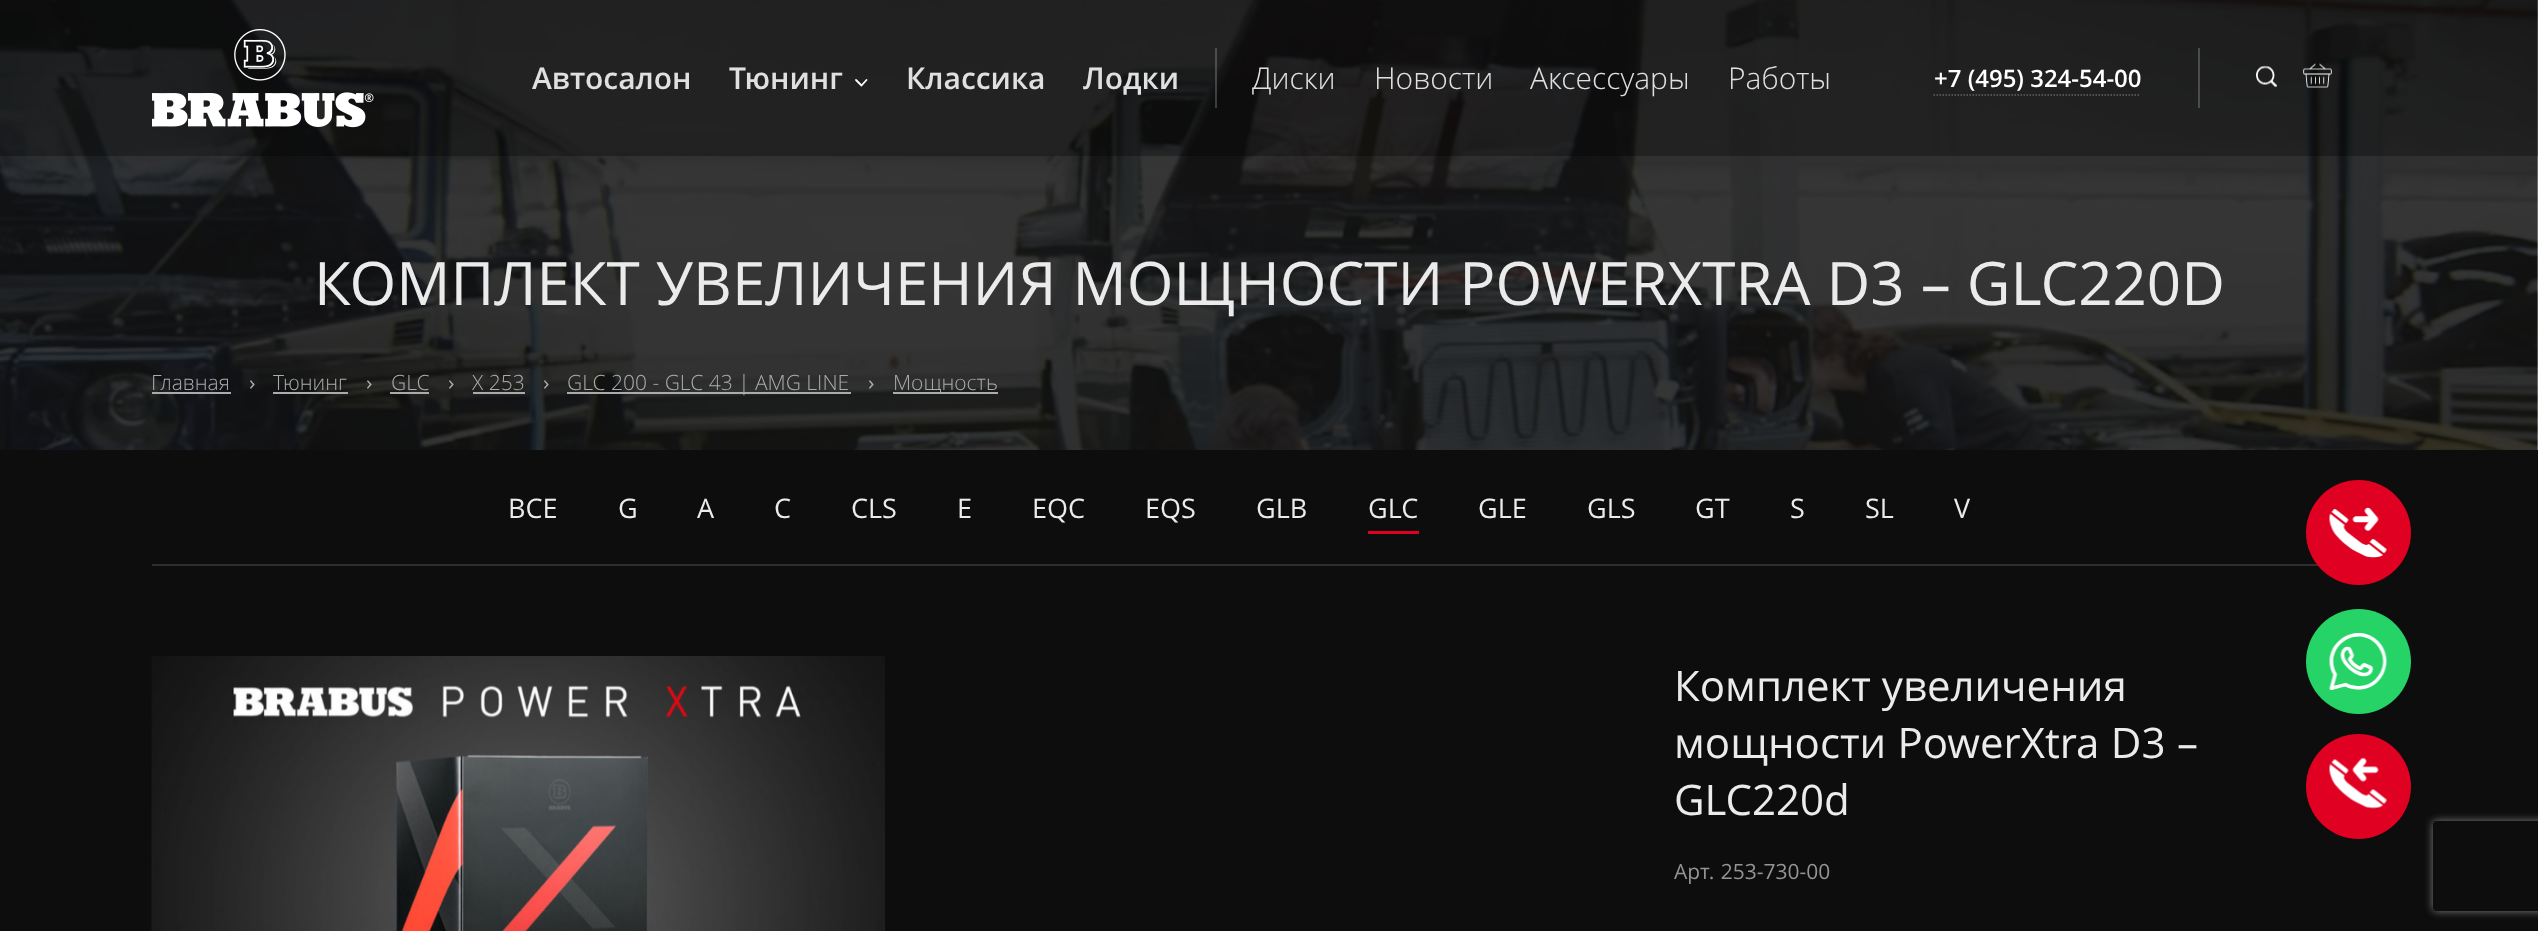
(async () => {
    const canvas = document.querySelector("canvas");
    canvas.width = 2538;
    canvas.height = 931;
    const context = canvas.getContext("2d");
    context.miterLimit = 4;
    context.fontKerning = "normal";
    function write(s, x, y, font, color) {
        context.font = font;
        context.fillStyle = color;
        context.fillText(s, x, y);
    }
    function block(x, y, w, h, color) {
        context.fillStyle = color;
        context.fillRect(x, y, w, h);
    }
    async function photo(src, x, y, w, h) {
        const img = new Image();
        img.src = src;
        await img.decode();
        context.drawImage(img, x, y, w, h);
    }
    let gradient;

    block(0, 0, 2538, 931, "rgb(255, 255, 255)");
    await photo("media/4.png", 0, 0, 2538, 450);
    block(0, 0, 2538, 156, "rgba(0, 0, 0, 0.3)");
    await photo("media/1.png", 152, 29, 222, 99);
    write("Автосалон", 532, 89, "600 30px Open Sans", "rgb(224, 224, 224)");
    write("Тюнинг", 729, 89, "600 30px Open Sans", "rgb(224, 224, 224)");
    context.beginPath();
    context.moveTo(856, 80);
    context.lineTo(861.5, 85.5);
    context.lineTo(866.5, 80);
    context.strokeStyle = "rgb(255, 255, 255)";
    context.lineWidth = 1.8;
    context.lineCap = "round";
    context.lineJoin = "round";
    context.stroke();
    write("Классика", 906, 89, "600 30px Open Sans", "rgb(224, 224, 224)");
    write("Лодки", 1083, 89, "600 30px Open Sans", "rgb(224, 224, 224)");
    block(1215, 48, 2, 60, "rgba(255, 255, 255, 0.2)");
    write("Диски", 1252, 89, "300 30px Open Sans", "rgb(224, 224, 224)");
    write("Новости", 1374, 89, "300 30px Open Sans", "rgb(224, 224, 224)");
    write("Аксессуары", 1530, 89, "300 30px Open Sans", "rgb(224, 224, 224)");
    write("Работы", 1728, 89, "300 30px Open Sans", "rgb(224, 224, 224)");
    write("+7 (495) 324-54-00", 1934, 87, "600 24px Open Sans", "rgb(255, 255, 255)");
    context.beginPath();
    context.moveTo(1933.5, 95);
    context.lineTo(2140.5, 95);
    context.strokeStyle = "rgb(100, 100, 100)";
    context.lineWidth = 1.5;
    context.lineCap = "butt";
    context.lineJoin = "miter";
    context.setLineDash([1.5, 1.5]);
    context.stroke();
    block(2198, 48, 2, 60, "rgb(76, 76, 76)");
    await photo("media/2.png", 2256, 65, 21, 23);
    await photo("media/3.png", 2303, 63, 29, 25);
    context.wordSpacing = "0.5px";
    write("КОМПЛЕКТ УВЕЛИЧЕНИЯ МОЩНОСТИ POWERXTRA D3 – GLC220D", 314, 305, "60px Open Sans", "rgb(235, 235, 235)");
    context.wordSpacing = "0px";
    write("Главная", 151, 390, "300 21px Open Sans", "rgb(171, 171, 171)");
    block(152, 392, 79, 2, "rgb(171, 171, 171)");
    write("›", 249, 390, "21px Open Sans", "rgb(171, 171, 171)");
    write("Тюнинг", 273, 390, "300 21px Open Sans", "rgb(171, 171, 171)");
    block(273, 392, 75, 2, "rgb(171, 171, 171)");
    write("›", 366, 390, "21px Open Sans", "rgb(171, 171, 171)");
    write("GLC", 391, 390, "300 21px Open Sans", "rgb(171, 171, 171)");
    block(390, 392, 39, 2, "rgb(171, 171, 171)");
    write("›", 448, 390, "21px Open Sans", "rgb(171, 171, 171)");
    write("X 253", 472, 390, "300 21px Open Sans", "rgb(171, 171, 171)");
    block(473, 392, 52, 2, "rgb(171, 171, 171)");
    write("›", 543, 390, "21px Open Sans", "rgb(171, 171, 171)");
    block(567, 392, 284, 2, "rgb(171, 171, 171)");
    write("GLC 200 - GLC 43 | AMG LINE", 567, 390, "300 21px Open Sans", "rgb(171, 171, 171)");
    write("›", 868, 390, "21px Open Sans", "rgb(171, 171, 171)");
    block(893, 392, 105, 2, "rgb(171, 171, 171)");
    write("Мощность", 893, 390, "300 21px Open Sans", "rgb(171, 171, 171)");
    block(0, 450, 2538, 481, "rgb(13, 13, 13)");
    block(152, 564, 2166, 2, "rgb(46, 46, 46)");
    write("ВСЕ", 508, 518, "27px Open Sans", "rgb(235, 235, 235)");
    write("G", 618, 518, "27px Open Sans", "rgb(235, 235, 235)");
    write("A", 697, 518, "27px Open Sans", "rgb(235, 235, 235)");
    write("C", 774, 518, "27px Open Sans", "rgb(235, 235, 235)");
    write("CLS", 851, 518, "27px Open Sans", "rgb(235, 235, 235)");
    write("E", 957, 518, "27px Open Sans", "rgb(235, 235, 235)");
    write("EQC", 1032, 518, "27px Open Sans", "rgb(235, 235, 235)");
    write("EQS", 1145, 518, "27px Open Sans", "rgb(235, 235, 235)");
    write("GLB", 1256, 518, "27px Open Sans", "rgb(235, 235, 235)");
    write("GLC", 1368, 518, "27px Open Sans", "rgb(235, 235, 235)");
    block(1368, 531, 51, 3, "rgb(224, 0, 34)");
    write("GLE", 1478, 518, "27px Open Sans", "rgb(235, 235, 235)");
    write("GLS", 1587, 518, "27px Open Sans", "rgb(235, 235, 235)");
    write("GT", 1695, 518, "27px Open Sans", "rgb(235, 235, 235)");
    write("S", 1790, 518, "27px Open Sans", "rgb(235, 235, 235)");
    write("SL", 1865, 518, "27px Open Sans", "rgb(235, 235, 235)");
    write("V", 1954, 518, "27px Open Sans", "rgb(235, 235, 235)");
    await photo("media/5.png", 151, 656, 734, 275);
    write("Комплект увеличения", 1674, 701, "42px Open Sans", "rgb(235, 235, 235)");
    context.wordSpacing = "0.5px";
    write("мощности PowerXtra D3 –", 1674, 758, "42px Open Sans", "rgb(235, 235, 235)");
    context.wordSpacing = "0px";
    write("GLC220d", 1674, 815, "42px Open Sans", "rgb(235, 235, 235)");
    context.wordSpacing = "1px";
    write("Арт. 253-730-00", 1674, 879, "21px Open Sans", "rgb(148, 148, 148)");
    context.fillStyle = "rgb(224, 0, 34)";
    context.beginPath();
    context.arc(2358.5, 532.5, 52.5, 0, Math.PI * 2);
    context.fill();
    await photo("media/6.png", 2329, 507, 58, 51);
    context.save();
    context.beginPath();
    context.roundRect(2306, 609, 105, 105, 52.5);
    context.clip();
    gradient = context.createRadialGradient(2358, 563, 0, 2358, 563, 70);
    gradient.addColorStop(1, "rgb(37, 211, 102)");
    gradient.addColorStop(1, "rgb(13, 13, 13)");
    context.fillStyle = gradient;
    context.fillRect(2341, 609, 35, 3);
    gradient = context.createRadialGradient(2259, 662, 0, 2259, 662, 70);
    gradient.addColorStop(1, "rgb(37, 211, 102)");
    gradient.addColorStop(1, "rgb(13, 13, 13)");
    context.fillStyle = gradient;
    context.fillRect(2306, 644, 3, 35);
    gradient = context.createRadialGradient(2358, 662, 0, 2358, 662, 70);
    gradient.addColorStop(1, "rgb(37, 211, 102)");
    gradient.addColorStop(1, "rgb(13, 13, 13)");
    context.fillStyle = gradient;
    context.fillRect(2309, 612, 99, 99);
    gradient = context.createRadialGradient(2457, 662, 0, 2457, 662, 70);
    gradient.addColorStop(1, "rgb(37, 211, 102)");
    gradient.addColorStop(1, "rgb(13, 13, 13)");
    context.fillStyle = gradient;
    context.fillRect(2408, 644, 3, 35);
    gradient = context.createRadialGradient(2358, 761, 0, 2358, 761, 70);
    gradient.addColorStop(1, "rgb(37, 211, 102)");
    gradient.addColorStop(1, "rgb(13, 13, 13)");
    context.fillStyle = gradient;
    context.fillRect(2341, 711, 35, 3);
    context.restore();
    await photo("media/7.png", 2329, 633, 58, 57);
    context.beginPath();
    context.arc(2358.5, 786.5, 52.5, 0, Math.PI * 2);
    context.fill();
    await photo("media/8.png", 2329, 757, 58, 52);
    context.save();
    context.beginPath();
    context.moveTo(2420, 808);
    context.lineTo(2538, 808);
    context.lineTo(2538, 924);
    context.lineTo(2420, 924);
    context.closePath();
    context.moveTo(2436, 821);
    context.lineTo(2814, 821);
    context.bezierCurveTo(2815.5, 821, 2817, 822.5, 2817, 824);
    context.lineTo(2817, 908);
    context.bezierCurveTo(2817, 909.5, 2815.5, 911, 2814, 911);
    context.lineTo(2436, 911);
    context.bezierCurveTo(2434.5, 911, 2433, 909.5, 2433, 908);
    context.lineTo(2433, 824);
    context.bezierCurveTo(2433, 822.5, 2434.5, 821, 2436, 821);
    context.closePath();
    context.clip("evenodd");
    context.fillStyle = "rgb(128, 128, 128)";
    context.filter = "blur(4px)";
    context.beginPath();
    context.roundRect(2433, 821, 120, 90, 3);
    context.fill();
    context.filter = "none";
    context.restore();
})();
